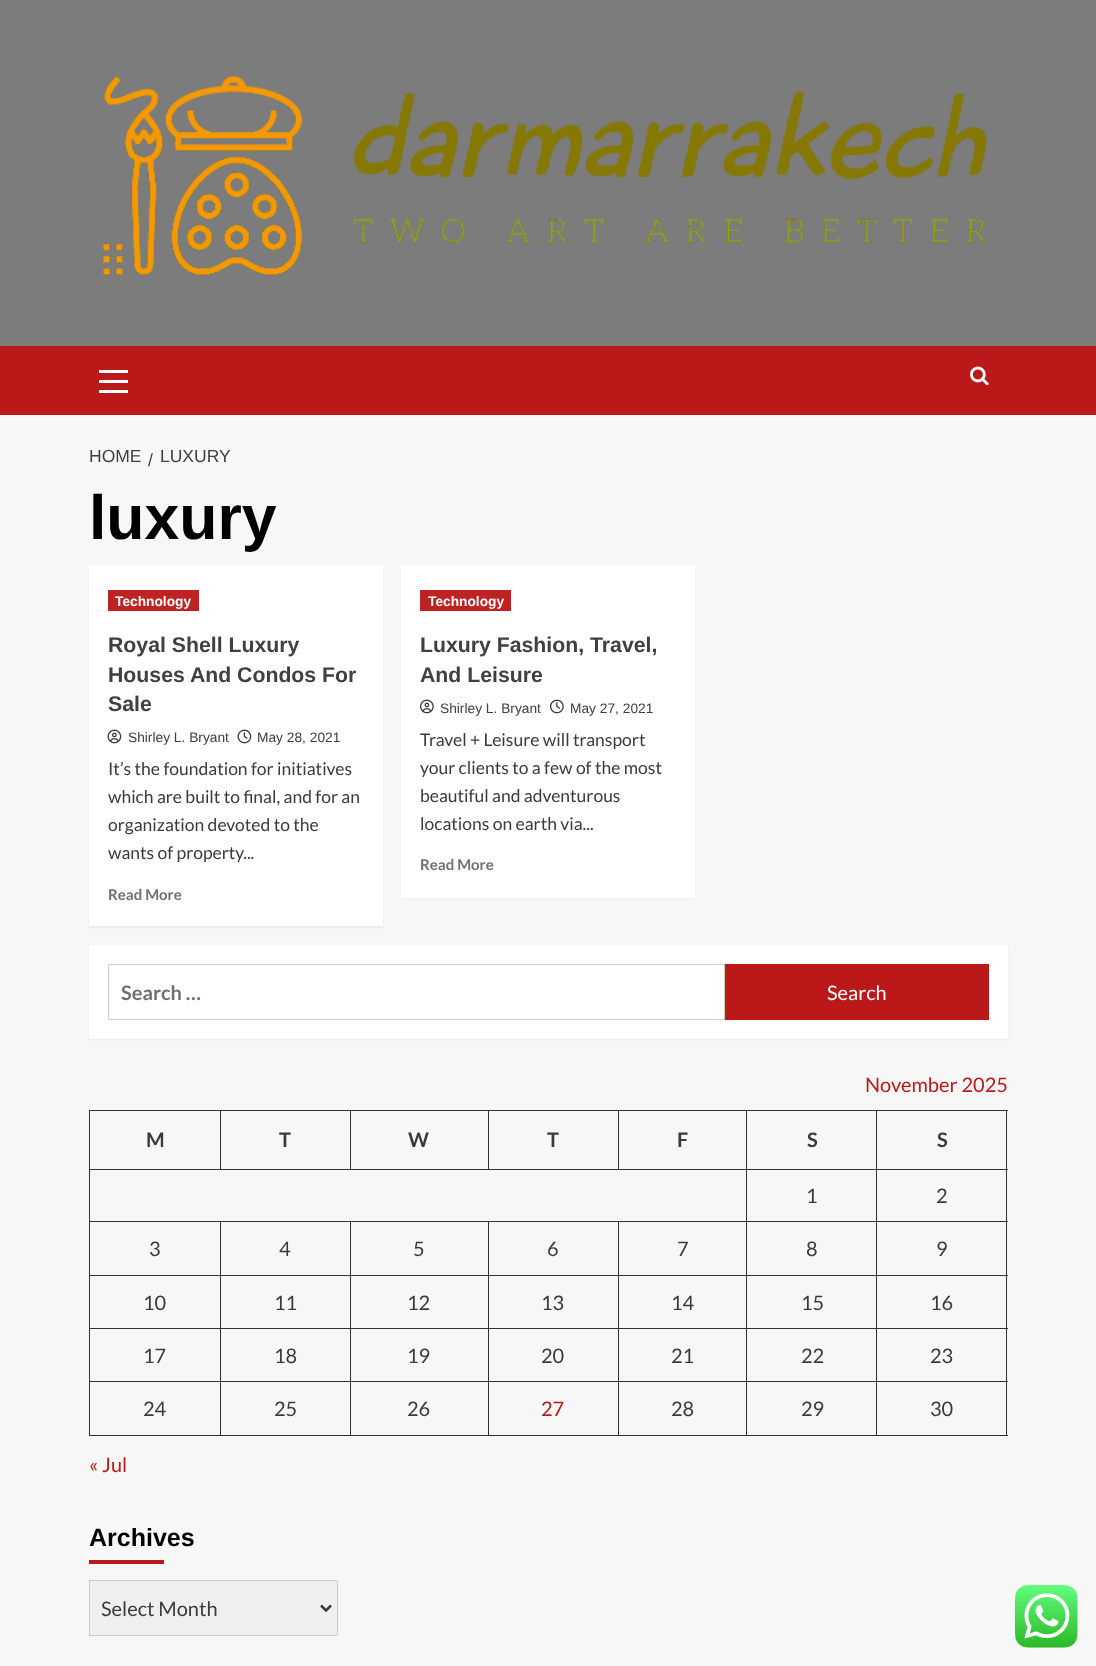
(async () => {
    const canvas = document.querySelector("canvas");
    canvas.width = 1096;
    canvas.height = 1666;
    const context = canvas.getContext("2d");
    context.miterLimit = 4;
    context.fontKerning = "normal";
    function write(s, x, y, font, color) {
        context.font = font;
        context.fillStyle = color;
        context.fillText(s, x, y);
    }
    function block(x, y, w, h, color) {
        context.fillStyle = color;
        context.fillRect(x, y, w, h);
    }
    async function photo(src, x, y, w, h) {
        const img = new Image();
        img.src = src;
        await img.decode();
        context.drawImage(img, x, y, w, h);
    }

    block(0, 0, 1096, 1666, "rgb(247, 247, 247)");
    block(0, 0, 1096, 346, "rgb(124, 124, 124)");
    await photo("media/1.png", 102, 75, 885, 201);
    block(0, 346, 1096, 69, "rgb(187, 25, 25)");
    block(99, 380, 29, 3, "rgb(255, 255, 255)");
    block(99, 370, 29, 3, "rgb(255, 255, 255)");
    block(99, 390, 29, 3, "rgb(255, 255, 255)");
    await photo("media/2.png", 970, 366, 19, 20);
    write("HOME", 89, 462, "17.5px Liberation Sans", "rgb(64, 64, 64)");
    write("/", 148, 466, "17.5px Liberation Sans", "rgb(64, 64, 64)");
    write("LUXURY", 160, 462, "17.5px Liberation Sans", "rgb(64, 64, 64)");
    write("luxury", 89, 539, "bold 62.5px Liberation Sans", "rgb(0, 0, 0)");
    context.fillStyle = "rgba(0, 0, 0, 0.05)";
    context.filter = "blur(1px)";
    context.beginPath();
    context.rect(89, 566, 294, 362);
    context.fill();
    context.filter = "none";
    block(89, 565, 294, 361, "rgb(255, 255, 255)");
    block(108, 590, 91, 21, "rgb(190, 34, 34)");
    write("Technology", 115, 606, "bold 13.75px Liberation Sans", "rgb(255, 255, 255)");
    write("Royal Shell Luxury", 108, 652, "bold 21.25px Liberation Sans", "rgb(64, 64, 64)");
    write("Houses And Condos For", 108, 682, "bold 21.25px Liberation Sans", "rgb(64, 64, 64)");
    write("Sale", 108, 711, "bold 21.25px Liberation Sans", "rgb(64, 64, 64)");
    await photo("media/3.png", 107, 729, 15, 15);
    write("Shirley L. Bryant", 128, 742, "13.75px Liberation Sans", "rgb(64, 64, 64)");
    await photo("media/4.png", 237, 729, 15, 15);
    write("May 28, 2021", 257, 742, "13.75px Liberation Sans", "rgb(64, 64, 64)");
    write("It’s the foundation for initiatives", 108, 775, "17.5px Lato", "rgb(58, 58, 58)");
    write("which are built to final, and for an", 108, 803, "17.5px Lato", "rgb(58, 58, 58)");
    write("organization devoted to the", 108, 831, "17.5px Lato", "rgb(58, 58, 58)");
    write("wants of property...", 108, 859, "17.5px Lato", "rgb(58, 58, 58)");
    write("Read More", 108, 900, "bold 15px Lato", "rgb(112, 112, 112)");
    context.fillStyle = "rgba(0, 0, 0, 0.05)";
    context.filter = "blur(1px)";
    context.beginPath();
    context.rect(401, 566, 294, 333);
    context.fill();
    context.filter = "none";
    block(401, 565, 294, 333, "rgb(255, 255, 255)");
    block(420, 590, 91, 21, "rgb(190, 34, 34)");
    write("Technology", 428, 606, "bold 13.75px Liberation Sans", "rgb(255, 255, 255)");
    write("Luxury Fashion, Travel,", 420, 652, "bold 21.25px Liberation Sans", "rgb(64, 64, 64)");
    write("And Leisure", 420, 682, "bold 21.25px Liberation Sans", "rgb(64, 64, 64)");
    await photo("media/5.png", 420, 699, 14, 15);
    write("Shirley L. Bryant", 440, 713, "13.75px Liberation Sans", "rgb(64, 64, 64)");
    await photo("media/6.png", 550, 699, 14, 15);
    write("May 27, 2021", 570, 713, "13.75px Liberation Sans", "rgb(64, 64, 64)");
    write("Travel + Leisure will transport", 420, 746, "17.5px Lato", "rgb(58, 58, 58)");
    write("your clients to a few of the most", 420, 774, "17.5px Lato", "rgb(58, 58, 58)");
    write("beautiful and adventurous", 420, 802, "17.5px Lato", "rgb(58, 58, 58)");
    write("locations on earth via...", 420, 830, "17.5px Lato", "rgb(58, 58, 58)");
    write("Read More", 420, 870, "bold 15px Lato", "rgb(112, 112, 112)");
    context.fillStyle = "rgba(0, 0, 0, 0.05)";
    context.filter = "blur(1px)";
    context.beginPath();
    context.rect(89, 946, 919, 94);
    context.fill();
    context.filter = "none";
    block(89, 945, 919, 94, "rgb(255, 255, 255)");
    context.strokeStyle = "rgb(204, 204, 204)";
    context.strokeRect(108.5, 964.5, 616, 55);
    write("Search …", 121, 1000, "bold 20px Lato", "rgb(112, 112, 112)");
    block(725, 964, 264, 56, "rgb(187, 25, 25)");
    write("Search", 827, 1000, "20px Lato", "rgb(255, 255, 255)");
    write("November 2025", 865, 1092, "20px Lato", "rgb(187, 25, 25)");
    block(876, 1110, 132, 1, "rgb(49, 49, 49)");
    block(876, 1169, 132, 1, "rgb(49, 49, 49)");
    block(876, 1221, 132, 1, "rgb(49, 49, 49)");
    block(876, 1275, 132, 1, "rgb(49, 49, 49)");
    block(876, 1328, 132, 1, "rgb(49, 49, 49)");
    block(876, 1381, 132, 1, "rgb(49, 49, 49)");
    block(1006, 1381, 1, 55, "rgb(49, 49, 49)");
    block(876, 1435, 132, 1, "rgb(49, 49, 49)");
    block(876, 1381, 1, 55, "rgb(49, 49, 49)");
    block(746, 1381, 132, 1, "rgb(49, 49, 49)");
    block(876, 1328, 1, 55, "rgb(49, 49, 49)");
    block(746, 1328, 132, 1, "rgb(49, 49, 49)");
    block(876, 1275, 1, 54, "rgb(49, 49, 49)");
    block(746, 1275, 132, 1, "rgb(49, 49, 49)");
    block(876, 1221, 1, 55, "rgb(49, 49, 49)");
    block(746, 1221, 132, 1, "rgb(49, 49, 49)");
    block(876, 1169, 1, 54, "rgb(49, 49, 49)");
    block(746, 1169, 132, 1, "rgb(49, 49, 49)");
    block(876, 1110, 1, 60, "rgb(49, 49, 49)");
    block(746, 1110, 132, 1, "rgb(49, 49, 49)");
    block(746, 1435, 132, 1, "rgb(49, 49, 49)");
    block(746, 1381, 1, 55, "rgb(49, 49, 49)");
    block(618, 1381, 130, 1, "rgb(49, 49, 49)");
    block(746, 1328, 1, 55, "rgb(49, 49, 49)");
    block(618, 1328, 130, 1, "rgb(49, 49, 49)");
    block(746, 1275, 1, 54, "rgb(49, 49, 49)");
    block(618, 1275, 130, 1, "rgb(49, 49, 49)");
    block(746, 1221, 1, 55, "rgb(49, 49, 49)");
    block(618, 1221, 130, 1, "rgb(49, 49, 49)");
    block(746, 1169, 1, 54, "rgb(49, 49, 49)");
    block(89, 1169, 659, 1, "rgb(49, 49, 49)");
    block(746, 1110, 1, 60, "rgb(49, 49, 49)");
    block(618, 1110, 130, 1, "rgb(49, 49, 49)");
    block(618, 1110, 1, 60, "rgb(49, 49, 49)");
    block(488, 1110, 131, 1, "rgb(49, 49, 49)");
    block(488, 1110, 1, 60, "rgb(49, 49, 49)");
    block(350, 1110, 139, 1, "rgb(49, 49, 49)");
    block(350, 1110, 1, 60, "rgb(49, 49, 49)");
    block(220, 1110, 131, 1, "rgb(49, 49, 49)");
    block(220, 1110, 1, 60, "rgb(49, 49, 49)");
    block(89, 1110, 132, 1, "rgb(49, 49, 49)");
    block(618, 1435, 130, 1, "rgb(49, 49, 49)");
    block(618, 1381, 1, 55, "rgb(49, 49, 49)");
    block(488, 1381, 131, 1, "rgb(49, 49, 49)");
    block(618, 1328, 1, 55, "rgb(49, 49, 49)");
    block(488, 1328, 131, 1, "rgb(49, 49, 49)");
    block(618, 1275, 1, 54, "rgb(49, 49, 49)");
    block(488, 1275, 131, 1, "rgb(49, 49, 49)");
    block(618, 1221, 1, 55, "rgb(49, 49, 49)");
    block(488, 1221, 131, 1, "rgb(49, 49, 49)");
    block(488, 1435, 131, 1, "rgb(49, 49, 49)");
    block(488, 1381, 1, 55, "rgb(49, 49, 49)");
    block(350, 1381, 139, 1, "rgb(49, 49, 49)");
    block(488, 1328, 1, 55, "rgb(49, 49, 49)");
    block(350, 1328, 139, 1, "rgb(49, 49, 49)");
    block(488, 1275, 1, 54, "rgb(49, 49, 49)");
    block(350, 1275, 139, 1, "rgb(49, 49, 49)");
    block(488, 1221, 1, 55, "rgb(49, 49, 49)");
    block(350, 1221, 139, 1, "rgb(49, 49, 49)");
    block(350, 1435, 139, 1, "rgb(49, 49, 49)");
    block(350, 1381, 1, 55, "rgb(49, 49, 49)");
    block(220, 1381, 131, 1, "rgb(49, 49, 49)");
    block(350, 1328, 1, 55, "rgb(49, 49, 49)");
    block(220, 1328, 131, 1, "rgb(49, 49, 49)");
    block(350, 1275, 1, 54, "rgb(49, 49, 49)");
    block(220, 1275, 131, 1, "rgb(49, 49, 49)");
    block(350, 1221, 1, 55, "rgb(49, 49, 49)");
    block(220, 1221, 131, 1, "rgb(49, 49, 49)");
    block(220, 1435, 131, 1, "rgb(49, 49, 49)");
    block(220, 1381, 1, 55, "rgb(49, 49, 49)");
    block(89, 1381, 132, 1, "rgb(49, 49, 49)");
    block(220, 1328, 1, 55, "rgb(49, 49, 49)");
    block(89, 1328, 132, 1, "rgb(49, 49, 49)");
    block(220, 1275, 1, 54, "rgb(49, 49, 49)");
    block(89, 1275, 132, 1, "rgb(49, 49, 49)");
    block(220, 1221, 1, 55, "rgb(49, 49, 49)");
    block(89, 1221, 132, 1, "rgb(49, 49, 49)");
    block(89, 1435, 132, 1, "rgb(49, 49, 49)");
    block(89, 1381, 1, 55, "rgb(49, 49, 49)");
    block(89, 1328, 1, 55, "rgb(49, 49, 49)");
    block(89, 1275, 1, 54, "rgb(49, 49, 49)");
    block(89, 1221, 1, 55, "rgb(49, 49, 49)");
    block(89, 1169, 1, 54, "rgb(49, 49, 49)");
    block(89, 1110, 1, 60, "rgb(49, 49, 49)");
    write("M", 146, 1147, "bold 20px Lato", "rgb(58, 58, 58)");
    write("T", 279, 1147, "bold 20px Lato", "rgb(58, 58, 58)");
    write("W", 408, 1147, "bold 20px Lato", "rgb(58, 58, 58)");
    write("T", 547, 1147, "bold 20px Lato", "rgb(58, 58, 58)");
    write("F", 677, 1147, "bold 20px Lato", "rgb(58, 58, 58)");
    write("S", 807, 1147, "bold 20px Lato", "rgb(58, 58, 58)");
    block(1006, 1328, 1, 55, "rgb(49, 49, 49)");
    block(1006, 1275, 1, 54, "rgb(49, 49, 49)");
    block(1006, 1221, 1, 55, "rgb(49, 49, 49)");
    block(1006, 1169, 1, 54, "rgb(49, 49, 49)");
    block(1006, 1110, 1, 60, "rgb(49, 49, 49)");
    write("S", 937, 1147, "bold 20px Lato", "rgb(58, 58, 58)");
    write("1", 806, 1203, "20px Lato", "rgb(58, 58, 58)");
    write("2", 936, 1203, "20px Lato", "rgb(58, 58, 58)");
    write("3", 149, 1256, "20px Lato", "rgb(58, 58, 58)");
    write("4", 279, 1256, "20px Lato", "rgb(58, 58, 58)");
    write("5", 413, 1256, "20px Lato", "rgb(58, 58, 58)");
    write("6", 547, 1256, "20px Lato", "rgb(58, 58, 58)");
    write("7", 677, 1256, "20px Lato", "rgb(58, 58, 58)");
    write("8", 806, 1256, "20px Lato", "rgb(58, 58, 58)");
    write("9", 936, 1256, "20px Lato", "rgb(58, 58, 58)");
    write("10", 143, 1310, "20px Lato", "rgb(58, 58, 58)");
    write("11", 274, 1310, "20px Lato", "rgb(58, 58, 58)");
    write("12", 407, 1310, "20px Lato", "rgb(58, 58, 58)");
    write("13", 541, 1310, "20px Lato", "rgb(58, 58, 58)");
    write("14", 671, 1310, "20px Lato", "rgb(58, 58, 58)");
    write("15", 801, 1310, "20px Lato", "rgb(58, 58, 58)");
    write("16", 930, 1310, "20px Lato", "rgb(58, 58, 58)");
    write("17", 143, 1363, "20px Lato", "rgb(58, 58, 58)");
    write("18", 274, 1363, "20px Lato", "rgb(58, 58, 58)");
    write("19", 407, 1363, "20px Lato", "rgb(58, 58, 58)");
    write("20", 541, 1363, "20px Lato", "rgb(58, 58, 58)");
    write("21", 671, 1363, "20px Lato", "rgb(58, 58, 58)");
    write("22", 801, 1363, "20px Lato", "rgb(58, 58, 58)");
    write("23", 930, 1363, "20px Lato", "rgb(58, 58, 58)");
    write("24", 143, 1416, "20px Lato", "rgb(58, 58, 58)");
    write("25", 274, 1416, "20px Lato", "rgb(58, 58, 58)");
    write("26", 407, 1416, "20px Lato", "rgb(58, 58, 58)");
    write("27", 541, 1416, "20px Lato", "rgb(187, 25, 25)");
    write("28", 671, 1416, "20px Lato", "rgb(58, 58, 58)");
    write("29", 801, 1416, "20px Lato", "rgb(58, 58, 58)");
    write("30", 930, 1416, "20px Lato", "rgb(58, 58, 58)");
    write("« Jul", 89, 1472, "20px Lato", "rgb(187, 25, 25)");
    write("Archives", 89, 1546, "bold 25px Liberation Sans", "rgb(0, 0, 0)");
    block(89, 1560, 75, 4, "rgb(187, 25, 25)");
    context.fillStyle = "rgb(239, 239, 239)";
    context.beginPath();
    context.rect(89.5, 1580.5, 248, 55);
    context.fill();
    context.stroke();
    context.beginPath();
    context.moveTo(321, 1605.5);
    context.lineTo(326, 1610.5);
    context.lineTo(331, 1605.5);
    context.strokeStyle = "rgb(58, 58, 58)";
    context.lineWidth = 2.5;
    context.stroke();
    write("Select Month", 101, 1616, "20px Lato", "rgb(58, 58, 58)");
    await photo("media/7.png", 1015, 1585, 63, 63);
})();
